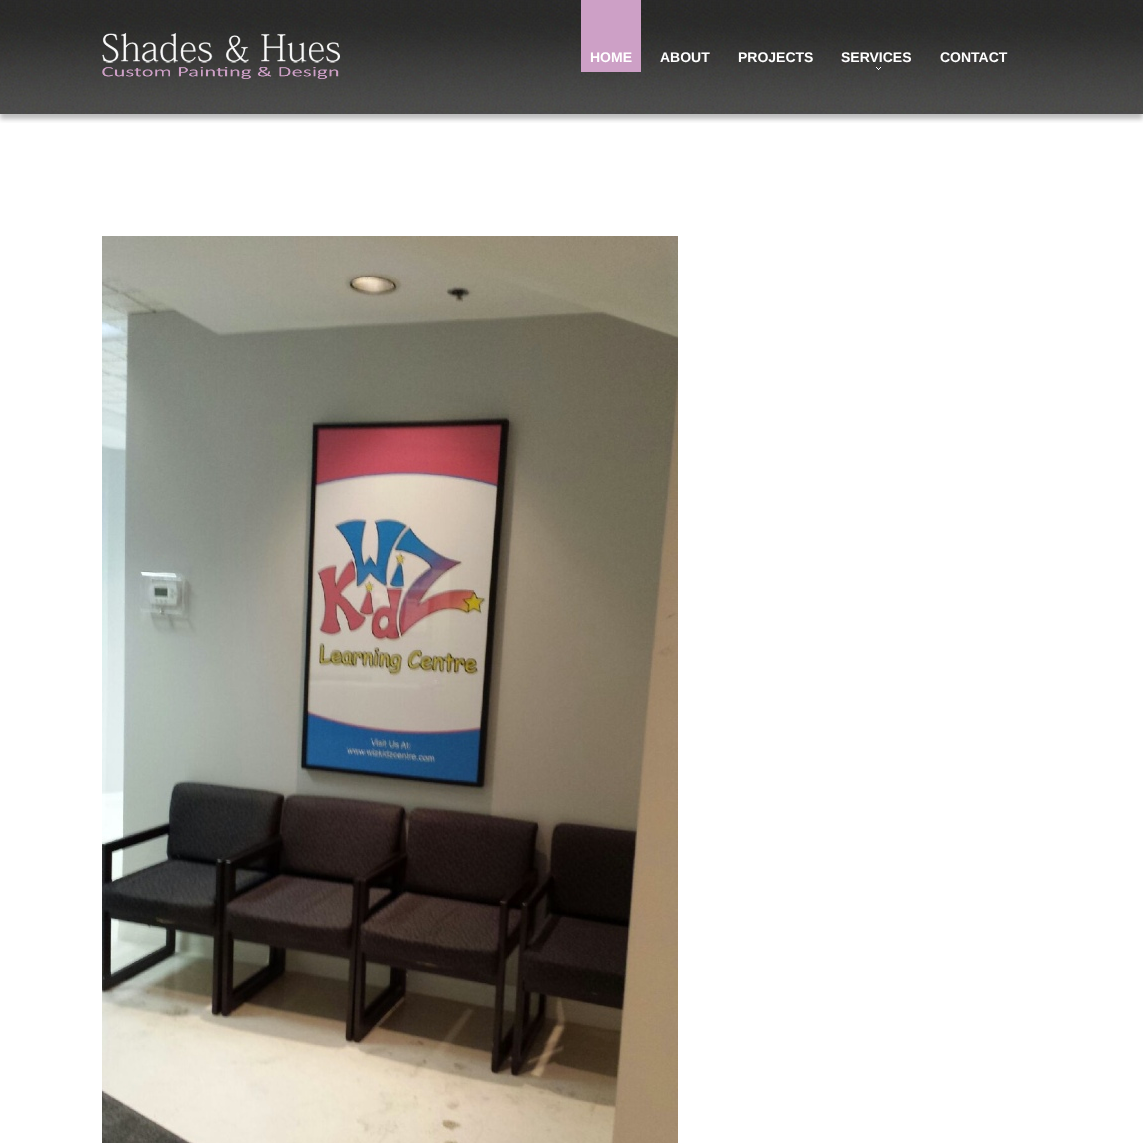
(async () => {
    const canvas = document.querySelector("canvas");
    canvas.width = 1143;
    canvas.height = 1143;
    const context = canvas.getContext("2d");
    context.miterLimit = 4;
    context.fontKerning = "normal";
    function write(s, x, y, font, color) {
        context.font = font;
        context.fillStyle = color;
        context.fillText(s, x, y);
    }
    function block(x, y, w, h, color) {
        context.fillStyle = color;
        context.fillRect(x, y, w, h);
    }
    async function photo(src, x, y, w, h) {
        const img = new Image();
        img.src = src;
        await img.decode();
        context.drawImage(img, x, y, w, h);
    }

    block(0, 0, 1143, 1143, "rgb(255, 255, 255)");
    await photo("media/1.png", 0, 0, 1143, 114);
    await photo("media/2.png", 102, 33, 238, 46);
    block(581, 0, 60, 72, "rgb(205, 160, 198)");
    write("HOME", 590, 62, "bold 14px Liberation Sans", "rgb(255, 255, 255)");
    write("ABOUT", 660, 62, "bold 14px Liberation Sans", "rgb(255, 255, 255)");
    write("PROJECTS", 738, 62, "bold 14px Liberation Sans", "rgb(255, 255, 255)");
    write("SERVICES", 841, 62, "bold 14px Liberation Sans", "rgb(255, 255, 255)");
    await photo("media/3.png", 876, 67, 5, 3);
    write("CONTACT", 940, 62, "bold 14px Liberation Sans", "rgb(255, 255, 255)");
    context.save();
    context.beginPath();
    context.rect(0, 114, 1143, 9);
    context.clip();
    context.fillStyle = "rgba(0, 0, 0, 0.27)";
    context.filter = "blur(2.5px)";
    context.beginPath();
    context.rect(0, 109, 1143, 10);
    context.fill();
    context.filter = "none";
    context.restore();
    await photo("media/4.png", 102, 236, 576, 907);
})();
